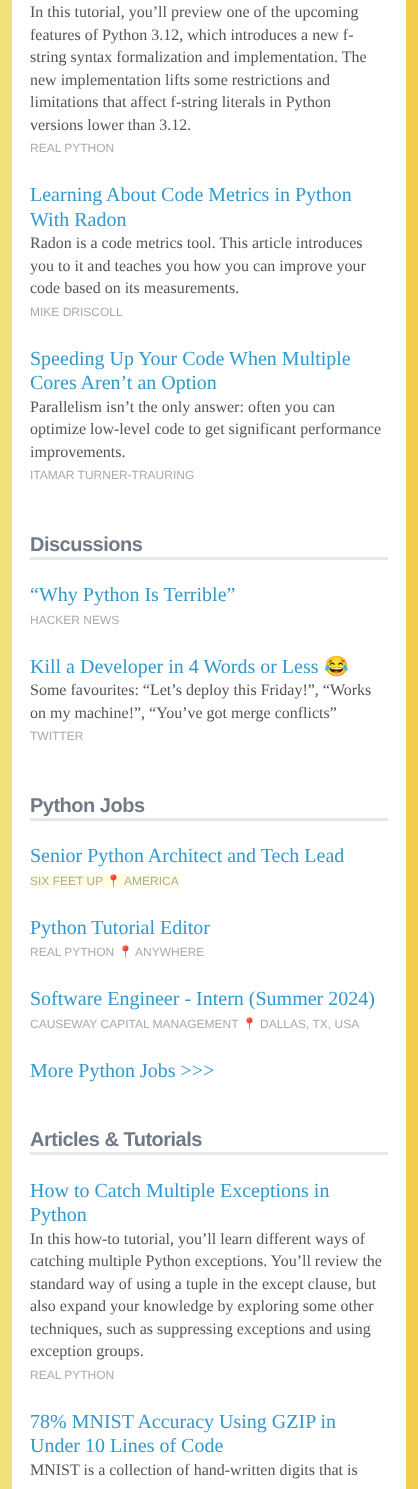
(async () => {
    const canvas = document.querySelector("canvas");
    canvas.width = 418;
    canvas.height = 1489;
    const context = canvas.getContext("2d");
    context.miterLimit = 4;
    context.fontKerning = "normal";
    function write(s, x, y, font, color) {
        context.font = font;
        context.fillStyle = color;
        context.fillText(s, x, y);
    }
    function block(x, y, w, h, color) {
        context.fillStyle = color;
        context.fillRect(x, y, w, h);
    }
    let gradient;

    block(0, 0, 418, 1489, "rgb(255, 255, 255)");
    gradient = context.createLinearGradient(0, -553, 418, -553);
    gradient.addColorStop(0, "rgb(243, 224, 120)");
    gradient.addColorStop(1, "rgb(242, 206, 77)");
    context.fillStyle = gradient;
    context.fillRect(0, 0, 418, 1489);
    block(12, 0, 394, 1489, "rgb(255, 255, 255)");
    write("In this tutorial, you’ll preview one of the upcoming", 30, 17, "16px Liberation Serif", "rgb(85, 85, 85)");
    write("features of Python 3.12, which introduces a new f-", 30, 40, "16px Liberation Serif", "rgb(85, 85, 85)");
    write("string syntax formalization and implementation. The", 30, 62, "16px Liberation Serif", "rgb(85, 85, 85)");
    write("new implementation lifts some restrictions and", 30, 85, "16px Liberation Serif", "rgb(85, 85, 85)");
    write("limitations that affect f-string literals in Python", 30, 107, "16px Liberation Serif", "rgb(85, 85, 85)");
    write("versions lower than 3.12.", 30, 130, "16px Liberation Serif", "rgb(85, 85, 85)");
    write("REAL PYTHON", 30, 152, "12px Liberation Sans", "rgb(170, 170, 170)");
    write("Learning About Code Metrics in Python", 30, 201, "20px Liberation Serif", "rgb(51, 153, 204)");
    write("With Radon", 30, 226, "20px Liberation Serif", "rgb(51, 153, 204)");
    write("Radon is a code metrics tool. This article introduces", 30, 248, "16px Liberation Serif", "rgb(85, 85, 85)");
    write("you to it and teaches you how you can improve your", 30, 271, "16px Liberation Serif", "rgb(85, 85, 85)");
    write("code based on its measurements.", 30, 293, "16px Liberation Serif", "rgb(85, 85, 85)");
    write("MIKE DRISCOLL", 30, 316, "12px Liberation Sans", "rgb(170, 170, 170)");
    write("Speeding Up Your Code When Multiple", 30, 365, "20px Liberation Serif", "rgb(51, 153, 204)");
    write("Cores Aren’t an Option", 30, 389, "20px Liberation Serif", "rgb(51, 153, 204)");
    write("Parallelism isn’t the only answer: often you can", 30, 412, "16px Liberation Serif", "rgb(85, 85, 85)");
    write("optimize low-level code to get significant performance", 30, 434, "16px Liberation Serif", "rgb(85, 85, 85)");
    write("improvements.", 30, 457, "16px Liberation Serif", "rgb(85, 85, 85)");
    write("ITAMAR TURNER-TRAURING", 30, 479, "12px Liberation Sans", "rgb(170, 170, 170)");
    block(30, 557, 358, 3, "rgb(229, 232, 234)");
    context.letterSpacing = "-0.5px";
    write("Discussions", 30, 551, "bold 20px Liberation Sans", "rgb(112, 122, 135)");
    context.letterSpacing = "0px";
    write("“Why Python Is Terrible”", 30, 601, "20px Liberation Serif", "rgb(51, 153, 204)");
    write("HACKER NEWS", 30, 624, "12px Liberation Sans", "rgb(170, 170, 170)");
    write("Kill a Developer in 4 Words or Less", 30, 673, "20px Liberation Serif", "rgb(51, 153, 204)");
    write("😂", 324, 673, "20px Noto Color Emoji", "rgb(51, 153, 204)");
    write("Some favourites: “Let’s deploy this Friday!”, “Works", 30, 695, "16px Liberation Serif", "rgb(85, 85, 85)");
    write("on my machine!”, “You’ve got merge conflicts”", 30, 718, "16px Liberation Serif", "rgb(85, 85, 85)");
    write("TWITTER", 30, 740, "12px Liberation Sans", "rgb(170, 170, 170)");
    block(30, 818, 358, 3, "rgb(229, 232, 234)");
    context.letterSpacing = "-0.5px";
    write("Python Jobs", 30, 812, "bold 20px Liberation Sans", "rgb(112, 122, 135)");
    context.letterSpacing = "0px";
    write("Senior Python Architect and Tech Lead", 30, 862, "20px Liberation Serif", "rgb(51, 153, 204)");
    block(30, 874, 149, 14, "rgb(255, 255, 224)");
    write("SIX FEET UP", 30, 885, "12px Liberation Sans", "rgb(170, 170, 170)");
    write("📍", 106, 885, "12px Noto Color Emoji", "rgb(170, 170, 170)");
    write("AMERICA", 124, 885, "12px Liberation Sans", "rgb(170, 170, 170)");
    write("Python Tutorial Editor", 30, 934, "20px Liberation Serif", "rgb(51, 153, 204)");
    write("REAL PYTHON", 30, 956, "12px Liberation Sans", "rgb(170, 170, 170)");
    write("📍", 118, 956, "12px Noto Color Emoji", "rgb(170, 170, 170)");
    write("ANYWHERE", 135, 956, "12px Liberation Sans", "rgb(170, 170, 170)");
    write("Software Engineer - Intern (Summer 2024)", 30, 1005, "20px Liberation Serif", "rgb(51, 153, 204)");
    write("CAUSEWAY CAPITAL MANAGEMENT", 30, 1028, "12px Liberation Sans", "rgb(170, 170, 170)");
    write("📍", 242, 1028, "12px Noto Color Emoji", "rgb(170, 170, 170)");
    write("DALLAS, TX, USA", 260, 1028, "12px Liberation Sans", "rgb(170, 170, 170)");
    write("More Python Jobs >>>", 30, 1077, "20px Liberation Serif", "rgb(51, 153, 204)");
    block(30, 1152, 358, 3, "rgb(229, 232, 234)");
    context.letterSpacing = "-0.5px";
    write("Articles & Tutorials", 30, 1146, "bold 20px Liberation Sans", "rgb(112, 122, 135)");
    context.letterSpacing = "0px";
    write("How to Catch Multiple Exceptions in", 30, 1197, "20px Liberation Serif", "rgb(51, 153, 204)");
    write("Python", 30, 1221, "20px Liberation Serif", "rgb(51, 153, 204)");
    write("In this how-to tutorial, you’ll learn different ways of", 30, 1244, "16px Liberation Serif", "rgb(85, 85, 85)");
    write("catching multiple Python exceptions. You’ll review the", 30, 1266, "16px Liberation Serif", "rgb(85, 85, 85)");
    write("standard way of using a tuple in the except clause, but", 30, 1289, "16px Liberation Serif", "rgb(85, 85, 85)");
    write("also expand your knowledge by exploring some other", 30, 1311, "16px Liberation Serif", "rgb(85, 85, 85)");
    write("techniques, such as suppressing exceptions and using", 30, 1334, "16px Liberation Serif", "rgb(85, 85, 85)");
    write("exception groups.", 30, 1356, "16px Liberation Serif", "rgb(85, 85, 85)");
    write("REAL PYTHON", 30, 1379, "12px Liberation Sans", "rgb(170, 170, 170)");
    write("78% MNIST Accuracy Using GZIP in", 30, 1428, "20px Liberation Serif", "rgb(51, 153, 204)");
    write("Under 10 Lines of Code", 30, 1452, "20px Liberation Serif", "rgb(51, 153, 204)");
    write("MNIST is a collection of hand-written digits that is", 30, 1475, "16px Liberation Serif", "rgb(85, 85, 85)");
})();
